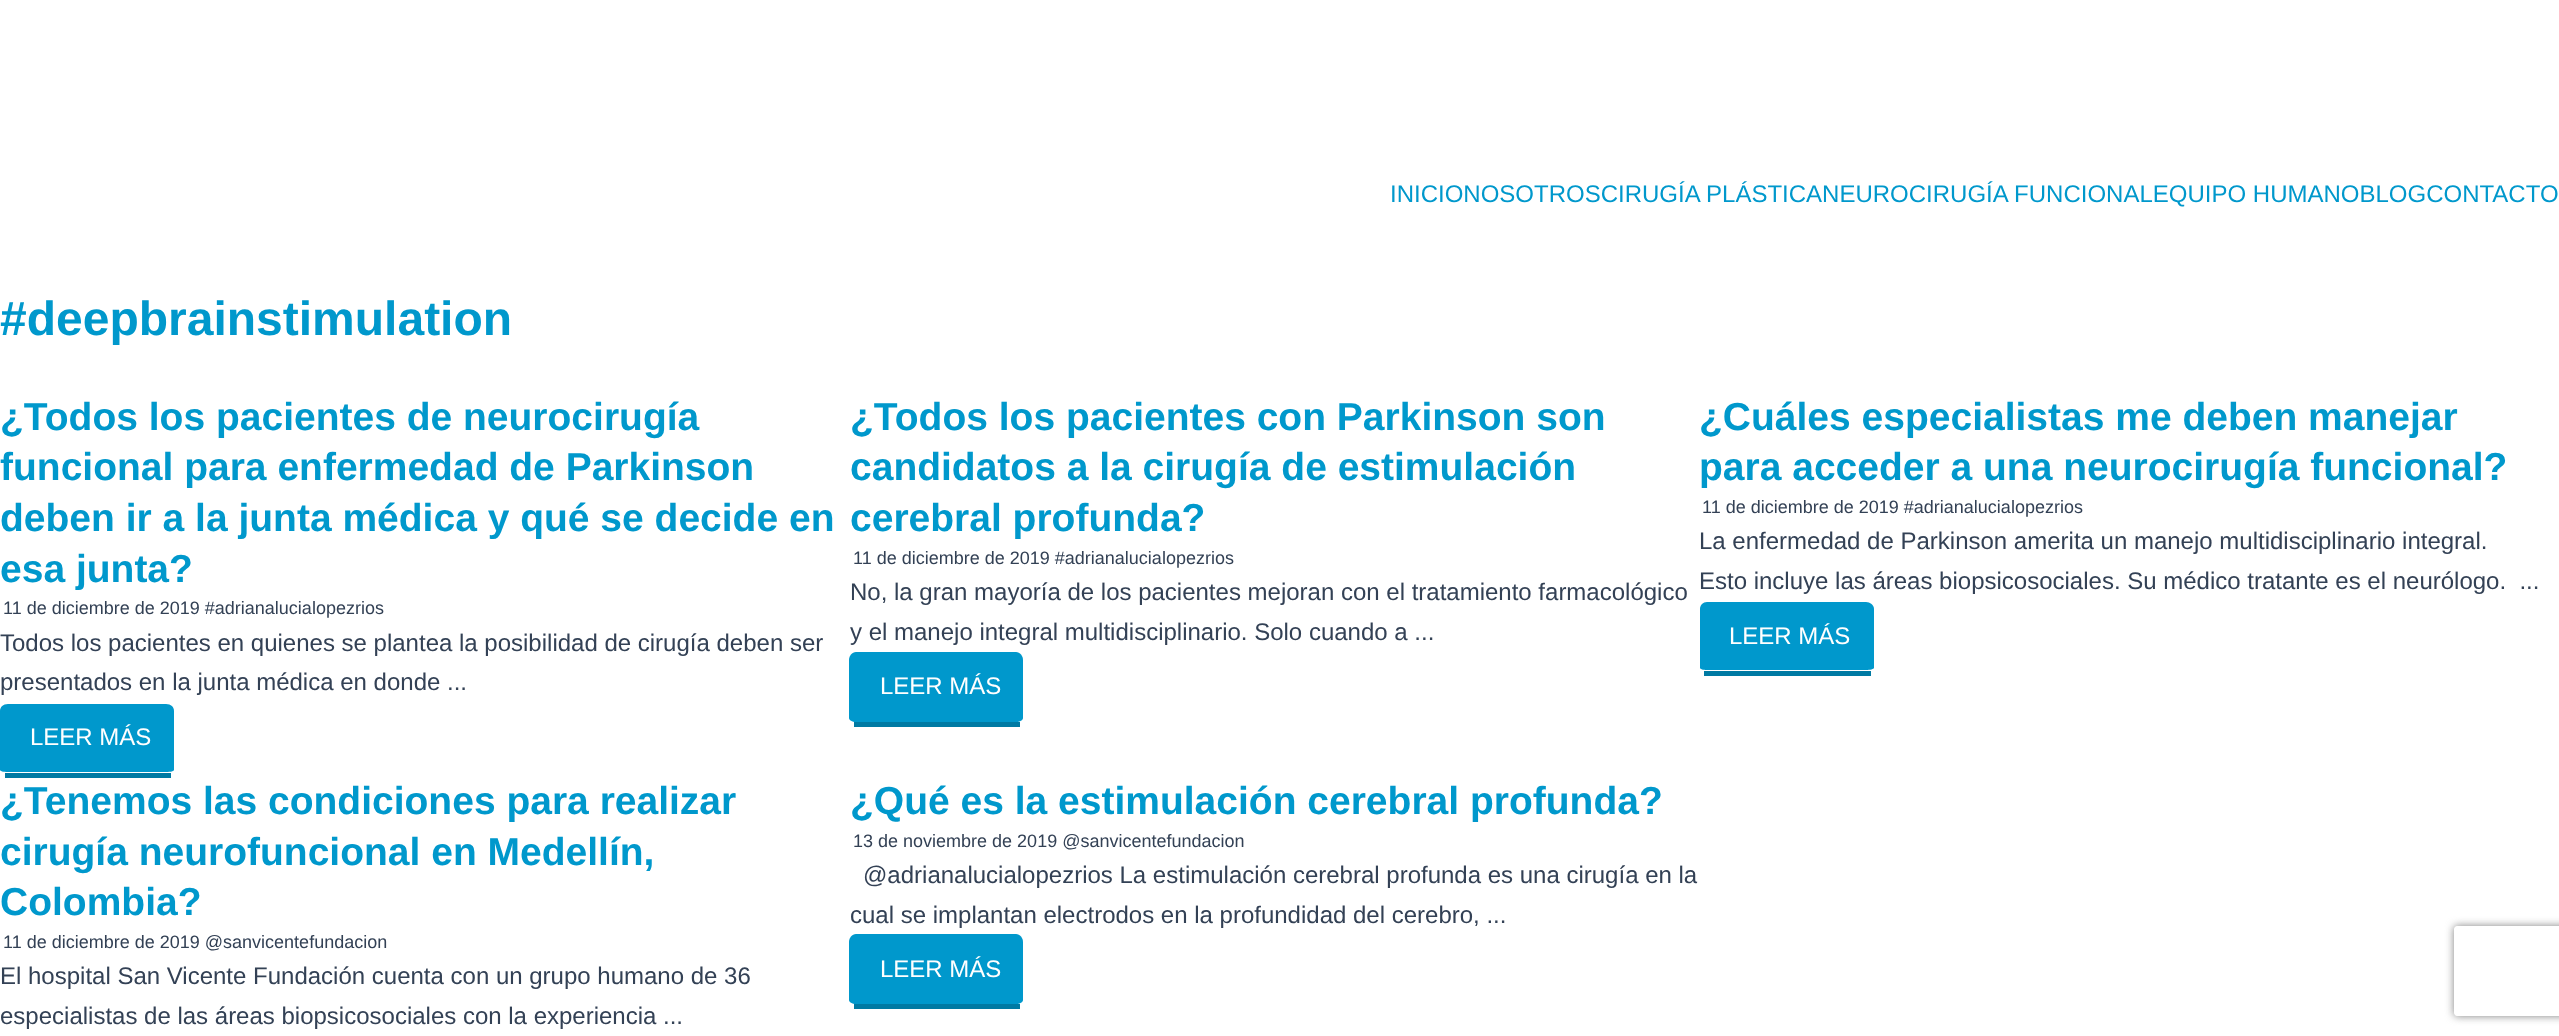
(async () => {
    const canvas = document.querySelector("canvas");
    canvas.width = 2559;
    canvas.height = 1036;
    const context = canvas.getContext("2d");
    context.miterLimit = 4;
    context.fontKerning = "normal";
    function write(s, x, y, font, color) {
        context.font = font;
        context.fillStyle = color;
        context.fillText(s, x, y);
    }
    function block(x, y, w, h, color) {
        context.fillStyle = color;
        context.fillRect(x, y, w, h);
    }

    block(0, 0, 2559, 1036, "rgb(255, 255, 255)");
    write("INICIONOSOTROSCIRUGÍA PLÁSTICANEUROCIRUGÍA FUNCIONALEQUIPO HUMANOBLOGCONTACTO", 1390, 202, "24px Liberation Sans", "rgb(0, 152, 204)");
    write("#deepbrainstimulation", 0, 335, "bold 48px Liberation Sans", "rgb(0, 152, 204)");
    write("¿Todos los pacientes de neurocirugía", 0, 430, "bold 39px Liberation Sans", "rgb(0, 152, 204)");
    write("funcional para enfermedad de Parkinson", 0, 480, "bold 39px Liberation Sans", "rgb(0, 152, 204)");
    write("deben ir a la junta médica y qué se decide en", 0, 531, "bold 39px Liberation Sans", "rgb(0, 152, 204)");
    write("esa junta?", 0, 582, "bold 39px Liberation Sans", "rgb(0, 152, 204)");
    write("11 de diciembre de 2019 #adrianalucialopezrios", 3, 614, "18px Liberation Sans", "rgb(51, 65, 85)");
    write("Todos los pacientes en quienes se plantea la posibilidad de cirugía deben ser", 0, 651, "24px Liberation Sans", "rgb(51, 65, 85)");
    write("presentados en la junta médica en donde ...", 0, 690, "24px Liberation Sans", "rgb(51, 65, 85)");
    context.fillStyle = "rgb(0, 152, 204)";
    context.beginPath();
    context.moveTo(8, 704);
    context.lineTo(166, 704);
    context.bezierCurveTo(171, 704, 174, 707, 174, 711);
    context.lineTo(174, 770);
    context.bezierCurveTo(174, 771, 171, 772, 166, 772);
    context.lineTo(8, 772);
    context.bezierCurveTo(3, 772, 0, 771, 0, 770);
    context.lineTo(0, 711);
    context.bezierCurveTo(0, 707, 3, 704, 8, 704);
    context.closePath();
    context.fill();
    block(5, 773, 166, 5, "rgb(0, 122, 163)");
    write("LEER MÁS", 30, 745, "24px Liberation Sans", "rgb(255, 255, 255)");
    write("¿Todos los pacientes con Parkinson son", 850, 430, "bold 39px Liberation Sans", "rgb(0, 152, 204)");
    write("candidatos a la cirugía de estimulación", 850, 480, "bold 39px Liberation Sans", "rgb(0, 152, 204)");
    write("cerebral profunda?", 850, 531, "bold 39px Liberation Sans", "rgb(0, 152, 204)");
    write("11 de diciembre de 2019 #adrianalucialopezrios", 853, 564, "18px Liberation Sans", "rgb(51, 65, 85)");
    write("No, la gran mayoría de los pacientes mejoran con el tratamiento farmacológico", 850, 600, "24px Liberation Sans", "rgb(51, 65, 85)");
    write("y el manejo integral multidisciplinario. Solo cuando a ...", 850, 640, "24px Liberation Sans", "rgb(51, 65, 85)");
    context.fillStyle = "rgb(0, 152, 204)";
    context.beginPath();
    context.moveTo(856, 652);
    context.lineTo(1016, 652);
    context.bezierCurveTo(1020, 652, 1023, 656, 1023, 660);
    context.lineTo(1023, 718);
    context.bezierCurveTo(1023, 720, 1020, 722, 1016, 722);
    context.lineTo(856, 722);
    context.bezierCurveTo(852, 722, 849, 720, 849, 718);
    context.lineTo(849, 660);
    context.bezierCurveTo(849, 656, 852, 652, 856, 652);
    context.closePath();
    context.fill();
    block(854, 722, 166, 5, "rgb(0, 122, 163)");
    write("LEER MÁS", 880, 694, "24px Liberation Sans", "rgb(255, 255, 255)");
    write("¿Cuáles especialistas me deben manejar", 1699, 430, "bold 39px Liberation Sans", "rgb(0, 152, 204)");
    write("para acceder a una neurocirugía funcional?", 1699, 480, "bold 39px Liberation Sans", "rgb(0, 152, 204)");
    write("11 de diciembre de 2019 #adrianalucialopezrios", 1702, 513, "18px Liberation Sans", "rgb(51, 65, 85)");
    write("La enfermedad de Parkinson amerita un manejo multidisciplinario integral.", 1699, 549, "24px Liberation Sans", "rgb(51, 65, 85)");
    write("Esto incluye las áreas biopsicosociales. Su médico tratante es el neurólogo.  ...", 1699, 589, "24px Liberation Sans", "rgb(51, 65, 85)");
    context.fillStyle = "rgb(0, 152, 204)";
    context.beginPath();
    context.moveTo(1707, 602);
    context.lineTo(1866, 602);
    context.bezierCurveTo(1870, 602, 1874, 605, 1874, 609);
    context.lineTo(1874, 668);
    context.bezierCurveTo(1874, 669, 1870, 670, 1866, 670);
    context.lineTo(1707, 670);
    context.bezierCurveTo(1703, 670, 1700, 669, 1700, 668);
    context.lineTo(1700, 609);
    context.bezierCurveTo(1700, 605, 1703, 602, 1707, 602);
    context.closePath();
    context.fill();
    block(1704, 671, 167, 5, "rgb(0, 122, 163)");
    write("LEER MÁS", 1729, 644, "24px Liberation Sans", "rgb(255, 255, 255)");
    write("¿Tenemos las condiciones para realizar", 0, 814, "bold 39px Liberation Sans", "rgb(0, 152, 204)");
    write("cirugía neurofuncional en Medellín,", 0, 865, "bold 39px Liberation Sans", "rgb(0, 152, 204)");
    write("Colombia?", 0, 915, "bold 39px Liberation Sans", "rgb(0, 152, 204)");
    write("11 de diciembre de 2019 @sanvicentefundacion", 3, 948, "18px Liberation Sans", "rgb(51, 65, 85)");
    write("El hospital San Vicente Fundación cuenta con un grupo humano de 36", 0, 984, "24px Liberation Sans", "rgb(51, 65, 85)");
    write("especialistas de las áreas biopsicosociales con la experiencia ...", 0, 1024, "24px Liberation Sans", "rgb(51, 65, 85)");
    write("¿Qué es la estimulación cerebral profunda?", 850, 814, "bold 39px Liberation Sans", "rgb(0, 152, 204)");
    write("13 de noviembre de 2019 @sanvicentefundacion", 853, 847, "18px Liberation Sans", "rgb(51, 65, 85)");
    write("@adrianalucialopezrios La estimulación cerebral profunda es una cirugía en la", 863, 883, "24px Liberation Sans", "rgb(51, 65, 85)");
    write("cual se implantan electrodos en la profundidad del cerebro, ...", 850, 923, "24px Liberation Sans", "rgb(51, 65, 85)");
    context.fillStyle = "rgb(0, 152, 204)";
    context.beginPath();
    context.moveTo(856, 934);
    context.lineTo(1016, 934);
    context.bezierCurveTo(1020, 934, 1023, 938, 1023, 942);
    context.lineTo(1023, 1000);
    context.bezierCurveTo(1023, 1002, 1020, 1004, 1016, 1004);
    context.lineTo(856, 1004);
    context.bezierCurveTo(852, 1004, 849, 1002, 849, 1000);
    context.lineTo(849, 942);
    context.bezierCurveTo(849, 938, 852, 934, 856, 934);
    context.closePath();
    context.fill();
    block(854, 1004, 166, 5, "rgb(0, 122, 163)");
    write("LEER MÁS", 880, 977, "24px Liberation Sans", "rgb(255, 255, 255)");
    context.save();
    context.beginPath();
    context.moveTo(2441, 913);
    context.lineTo(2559, 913);
    context.lineTo(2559, 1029);
    context.lineTo(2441, 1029);
    context.closePath();
    context.moveTo(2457, 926);
    context.lineTo(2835, 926);
    context.bezierCurveTo(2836.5, 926, 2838, 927.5, 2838, 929);
    context.lineTo(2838, 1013);
    context.bezierCurveTo(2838, 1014.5, 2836.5, 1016, 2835, 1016);
    context.lineTo(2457, 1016);
    context.bezierCurveTo(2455.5, 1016, 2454, 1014.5, 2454, 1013);
    context.lineTo(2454, 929);
    context.bezierCurveTo(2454, 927.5, 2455.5, 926, 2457, 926);
    context.closePath();
    context.clip("evenodd");
    context.fillStyle = "rgb(128, 128, 128)";
    context.filter = "blur(4px)";
    context.beginPath();
    context.roundRect(2454, 926, 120, 90, 3);
    context.fill();
    context.filter = "none";
    context.restore();
})();
